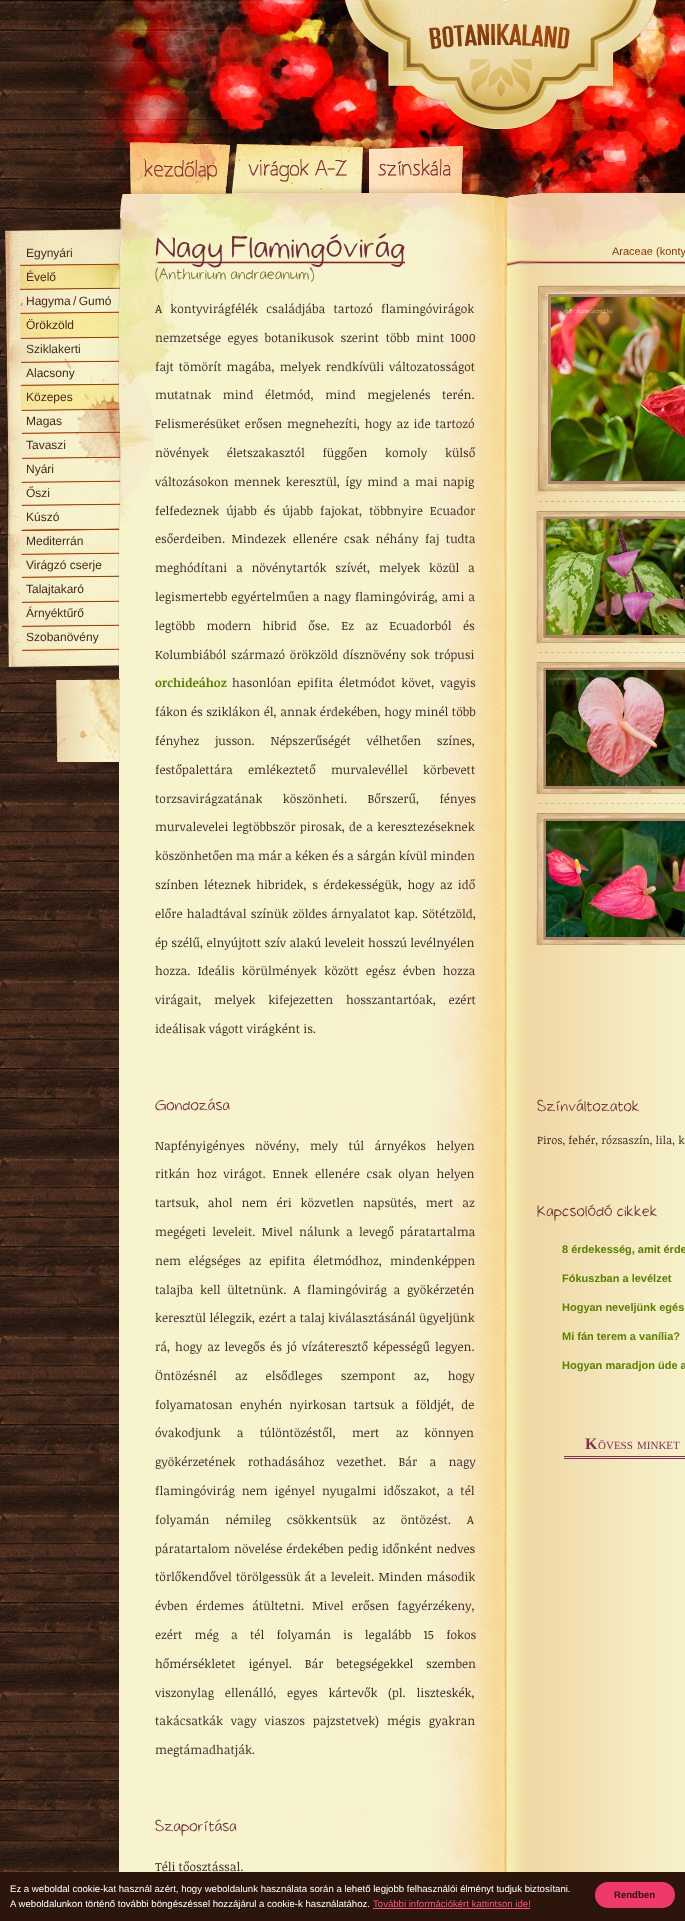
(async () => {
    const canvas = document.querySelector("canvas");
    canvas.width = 685;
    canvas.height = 1921;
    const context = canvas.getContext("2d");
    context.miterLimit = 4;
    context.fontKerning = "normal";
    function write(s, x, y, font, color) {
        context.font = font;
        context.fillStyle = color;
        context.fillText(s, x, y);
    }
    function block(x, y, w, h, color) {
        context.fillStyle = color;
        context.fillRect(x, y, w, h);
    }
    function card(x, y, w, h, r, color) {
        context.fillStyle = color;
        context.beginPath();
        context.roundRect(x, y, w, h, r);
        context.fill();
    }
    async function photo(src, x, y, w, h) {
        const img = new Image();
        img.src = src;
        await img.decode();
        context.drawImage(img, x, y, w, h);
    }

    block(0, 0, 685, 1921, "rgb(255, 255, 255)");
    await photo("media/1.png", 0, 0, 119, 1872);
    await photo("media/2.png", 11, 0, 674, 231);
    await photo("media/3.png", 120, 192, 565, 40);
    await photo("media/4.png", 345, 0, 312, 129);
    await photo("media/5.png", 128, 142, 104, 54);
    await photo("media/6.png", 232, 144, 134, 51);
    await photo("media/7.png", 366, 146, 99, 49);
    await photo("media/8.png", 118, 592, 567, 1280);
    await photo("media/9.png", 5, 227, 118, 441);
    await photo("media/10.png", 123, 232, 562, 360);
    await photo("media/11.png", 155, 261, 250, 3);
    write("Nagy Flamingóvirág", 155, 257, "28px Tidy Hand", "rgb(115, 45, 56)");
    write("(Anthurium andraeanum)", 155, 279, "14px Tidy Hand", "rgb(124, 115, 56)");
    context.wordSpacing = "5px";
    write("A kontyvirágfélék családjába tartozó flamingóvirágok", 155, 313, "12px Noticia Text", "rgb(69, 45, 40)");
    context.wordSpacing = "3.25px";
    write("nemzetsége egyes botanikusok szerint több mint 1000", 155, 342, "12px Noticia Text", "rgb(69, 45, 40)");
    context.wordSpacing = "1.75px";
    write("fajt tömörít magába, melyek rendkívüli változatosságot", 155, 371, "12px Noticia Text", "rgb(69, 45, 40)");
    context.wordSpacing = "8.25px";
    write("mutatnak mind életmód, mind megjelenés terén.", 155, 399, "12px Noticia Text", "rgb(69, 45, 40)");
    context.wordSpacing = "1.5px";
    write("Felismerésüket erősen megnehezíti, hogy az ide tartozó", 155, 428, "12px Noticia Text", "rgb(69, 45, 40)");
    context.wordSpacing = "14.5px";
    write("növények életszakasztól függően komoly külső", 155, 457, "12px Noticia Text", "rgb(69, 45, 40)");
    context.wordSpacing = "2px";
    write("változásokon mennek keresztül, így mind a mai napig", 155, 486, "12px Noticia Text", "rgb(69, 45, 40)");
    context.wordSpacing = "3.75px";
    write("felfedeznek újabb és újabb fajokat, többnyire Ecuador", 155, 515, "12px Noticia Text", "rgb(69, 45, 40)");
    context.wordSpacing = "3.25px";
    write("esőerdeiben. Mindezek ellenére csak néhány faj tudta", 155, 543, "12px Noticia Text", "rgb(69, 45, 40)");
    context.wordSpacing = "5.5px";
    write("meghódítani a növénytartók szívét, melyek közül a", 155, 572, "12px Noticia Text", "rgb(69, 45, 40)");
    context.wordSpacing = "0.75px";
    write("legismertebb egyértelműen a nagy flamingóvirág, ami a", 155, 601, "12px Noticia Text", "rgb(69, 45, 40)");
    context.wordSpacing = "8.25px";
    write("legtöbb modern hibrid őse. Ez az Ecuadorból és", 155, 630, "12px Noticia Text", "rgb(69, 45, 40)");
    context.wordSpacing = "1.5px";
    write("Kolumbiából származó örökzöld dísznövény sok trópusi", 155, 659, "12px Noticia Text", "rgb(69, 45, 40)");
    context.wordSpacing = "0px";
    write("orchideához", 155, 687, "bold 12px Noticia Text", "rgb(91, 128, 0)");
    context.wordSpacing = "2.5px";
    write("hasonlóan epifita életmódot követ, vagyis", 232, 687, "12px Noticia Text", "rgb(69, 45, 40)");
    context.wordSpacing = "0.25px";
    write("fákon és sziklákon él, annak érdekében, hogy minél több", 155, 716, "12px Noticia Text", "rgb(69, 45, 40)");
    context.wordSpacing = "12.5px";
    write("fényhez jusson. Népszerűségét vélhetően színes,", 155, 745, "12px Noticia Text", "rgb(69, 45, 40)");
    context.wordSpacing = "12px";
    write("festőpalettára emlékeztető murvalevéllel körbevett", 155, 774, "12px Noticia Text", "rgb(69, 45, 40)");
    context.wordSpacing = "17px";
    write("torzsavirágzatának köszönheti. Bőrszerű, fényes", 155, 803, "12px Noticia Text", "rgb(69, 45, 40)");
    context.wordSpacing = "1px";
    write("murvalevelei legtöbbször pirosak, de a keresztezéseknek", 155, 831, "12px Noticia Text", "rgb(69, 45, 40)");
    context.wordSpacing = "0px";
    write("köszönhetően ma már a kéken és a sárgán kívül minden", 155, 860, "12px Noticia Text", "rgb(69, 45, 40)");
    context.wordSpacing = "2.25px";
    write("színben léteznek hibridek, s érdekességük, hogy az idő", 155, 889, "12px Noticia Text", "rgb(69, 45, 40)");
    context.wordSpacing = "1px";
    write("előre haladtával színük zöldes árnyalatot kap. Sötétzöld,", 155, 918, "12px Noticia Text", "rgb(69, 45, 40)");
    context.wordSpacing = "0.25px";
    write("ép szélű, elnyújtott szív alakú leveleit hosszú levélnyélen", 155, 947, "12px Noticia Text", "rgb(69, 45, 40)");
    context.wordSpacing = "4px";
    write("hozza. Ideális körülmények között egész évben hozza", 155, 975, "12px Noticia Text", "rgb(69, 45, 40)");
    context.wordSpacing = "9.5px";
    write("virágait, melyek kifejezetten hosszantartóak, ezért", 155, 1004, "12px Noticia Text", "rgb(69, 45, 40)");
    context.wordSpacing = "0px";
    write("ideálisak vágott virágként is.", 155, 1033, "12px Noticia Text", "rgb(69, 45, 40)");
    write("Gondozása", 155, 1110, "14px Tidy Hand", "rgb(115, 45, 56)");
    context.wordSpacing = "7.25px";
    write("Napfényigényes növény, mely túl árnyékos helyen", 155, 1150, "12px Noticia Text", "rgb(69, 45, 40)");
    context.wordSpacing = "3.5px";
    write("ritkán hoz virágot. Ennek ellenére csak olyan helyen", 155, 1178, "12px Noticia Text", "rgb(69, 45, 40)");
    context.wordSpacing = "5.75px";
    write("tartsuk, ahol nem éri közvetlen napsütés, mert az", 155, 1207, "12px Noticia Text", "rgb(69, 45, 40)");
    context.wordSpacing = "3px";
    write("megégeti leveleit. Mivel nálunk a levegő páratartalma", 155, 1236, "12px Noticia Text", "rgb(69, 45, 40)");
    context.wordSpacing = "4.75px";
    write("nem elégséges az epifita életmódhoz, mindenképpen", 155, 1265, "12px Noticia Text", "rgb(69, 45, 40)");
    context.wordSpacing = "3.5px";
    write("talajba kell ültetnünk. A flamingóvirág a gyökérzetén", 155, 1294, "12px Noticia Text", "rgb(69, 45, 40)");
    context.wordSpacing = "0.25px";
    write("keresztül lélegzik, ezért a talaj kiválasztásánál ügyeljünk", 155, 1322, "12px Noticia Text", "rgb(69, 45, 40)");
    context.wordSpacing = "1.75px";
    write("rá, hogy az levegős és jó vízáteresztő képességű legyen.", 155, 1351, "12px Noticia Text", "rgb(69, 45, 40)");
    context.wordSpacing = "15px";
    write("Öntözésnél az elsődleges szempont az, hogy", 155, 1380, "12px Noticia Text", "rgb(69, 45, 40)");
    context.wordSpacing = "4px";
    write("folyamatosan enyhén nyirkosan tartsuk a földjét, de", 155, 1409, "12px Noticia Text", "rgb(69, 45, 40)");
    context.wordSpacing = "13px";
    write("óvakodjunk a túlöntözéstől, mert az könnyen", 155, 1437, "12px Noticia Text", "rgb(69, 45, 40)");
    context.wordSpacing = "9px";
    write("gyökérzetének rothadásához vezethet. Bár a nagy", 155, 1466, "12px Noticia Text", "rgb(69, 45, 40)");
    context.wordSpacing = "3.75px";
    write("flamingóvirág nem igényel nyugalmi időszakot, a tél", 155, 1495, "12px Noticia Text", "rgb(69, 45, 40)");
    context.wordSpacing = "12.5px";
    write("folyamán némileg csökkentsük az öntözést. A", 155, 1524, "12px Noticia Text", "rgb(69, 45, 40)");
    context.wordSpacing = "0.75px";
    write("páratartalom növelése érdekében pedig időnként nedves", 155, 1553, "12px Noticia Text", "rgb(69, 45, 40)");
    context.wordSpacing = "1px";
    write("törlőkendővel törölgessük át a leveleit. Minden második", 155, 1581, "12px Noticia Text", "rgb(69, 45, 40)");
    context.wordSpacing = "5px";
    write("évben érdemes átültetni. Mivel erősen fagyérzékeny,", 155, 1610, "12px Noticia Text", "rgb(69, 45, 40)");
    context.wordSpacing = "9px";
    write("ezért még a tél folyamán is legalább 15 fokos", 155, 1639, "12px Noticia Text", "rgb(69, 45, 40)");
    context.wordSpacing = "9.5px";
    write("hőmérsékletet igényel. Bár betegségekkel szemben", 155, 1668, "12px Noticia Text", "rgb(69, 45, 40)");
    context.wordSpacing = "7.5px";
    write("viszonylag ellenálló, egyes kártevők (pl. liszteskék,", 155, 1697, "12px Noticia Text", "rgb(69, 45, 40)");
    context.wordSpacing = "4.75px";
    write("takácsatkák vagy viaszos pajzstetvek) mégis gyakran", 155, 1725, "12px Noticia Text", "rgb(69, 45, 40)");
    context.wordSpacing = "0px";
    write("megtámadhatják.", 155, 1754, "12px Noticia Text", "rgb(69, 45, 40)");
    write("Szaporítása", 155, 1831, "14px Tidy Hand", "rgb(115, 45, 56)");
    write("Téli tőosztással.", 155, 1871, "12px Noticia Text", "rgb(69, 45, 40)");
    write("Araceae (konty", 612, 255, "11px Liberation Sans", "rgb(144, 52, 11)");
    await photo("media/12.png", 507, 260, 178, 7);
    await photo("media/13.png", 535, 283, 150, 662);
    await photo("media/14.png", 551, 297, 134, 184);
    await photo("media/15.png", 546, 519, 139, 116);
    await photo("media/16.png", 546, 670, 139, 116);
    await photo("media/17.png", 546, 821, 139, 116);
    write("Színváltozatok", 537, 1111, "14px Tidy Hand", "rgb(115, 45, 56)");
    write("Piros, fehér, rózsaszín, lila, k", 537, 1144, "11px Noticia Text", "rgb(69, 45, 40)");
    write("Kapcsolódó cikkek", 537, 1216, "14px Tidy Hand", "rgb(115, 45, 56)");
    write("8 érdekesség, amit érde", 562, 1253, "bold 11px Liberation Sans", "rgb(91, 128, 0)");
    write("Fókuszban a levélzet", 562, 1282, "bold 11px Liberation Sans", "rgb(91, 128, 0)");
    write("Hogyan neveljünk egés", 562, 1311, "bold 11px Liberation Sans", "rgb(91, 128, 0)");
    write("Mi fán terem a vanília?", 562, 1340, "bold 11px Liberation Sans", "rgb(91, 128, 0)");
    write("Hogyan maradjon üde a", 562, 1369, "bold 11px Liberation Sans", "rgb(91, 128, 0)");
    block(564, 1456, 121, 1, "rgb(135, 44, 92)");
    block(564, 1458, 121, 1, "rgb(135, 44, 92)");
    write("K", 585, 1449, "bold 16px Liberation Serif", "rgb(135, 44, 92)");
    write("ÖVESS", 598, 1449, "11px Liberation Serif", "rgb(135, 44, 92)");
    write("MINKET", 637, 1449, "11px Liberation Serif", "rgb(135, 44, 92)");
    write("Egynyári", 26, 257, "12px Liberation Sans", "rgb(69, 40, 28)");
    await photo("media/18.png", 20, 265, 102, 24);
    write("Évelő", 26, 281, "12px Liberation Sans", "rgb(69, 40, 28)");
    write("Hagyma", 26, 305, "12px Liberation Sans", "rgb(69, 40, 28)");
    context.wordSpacing = "-1px";
    write("/ Gumó", 73, 305, "12px Liberation Sans", "rgb(69, 40, 28)");
    await photo("media/19.png", 20, 313, 102, 24);
    context.wordSpacing = "0px";
    write("Örökzöld", 26, 329, "12px Liberation Sans", "rgb(69, 40, 28)");
    write("Sziklakerti", 26, 353, "12px Liberation Sans", "rgb(69, 40, 28)");
    write("Alacsony", 26, 377, "12px Liberation Sans", "rgb(69, 40, 28)");
    await photo("media/20.png", 20, 385, 102, 24);
    write("Közepes", 26, 401, "12px Liberation Sans", "rgb(69, 40, 28)");
    write("Magas", 26, 425, "12px Liberation Sans", "rgb(69, 40, 28)");
    write("Tavaszi", 26, 449, "12px Liberation Sans", "rgb(69, 40, 28)");
    write("Nyári", 26, 473, "12px Liberation Sans", "rgb(69, 40, 28)");
    write("Őszi", 26, 497, "12px Liberation Sans", "rgb(69, 40, 28)");
    write("Kúszó", 26, 521, "12px Liberation Sans", "rgb(69, 40, 28)");
    write("Mediterrán", 26, 545, "12px Liberation Sans", "rgb(69, 40, 28)");
    write("Virágzó cserje", 26, 569, "12px Liberation Sans", "rgb(69, 40, 28)");
    write("Talajtakaró", 26, 593, "12px Liberation Sans", "rgb(69, 40, 28)");
    write("Árnyéktűrő", 26, 617, "12px Liberation Sans", "rgb(69, 40, 28)");
    write("Szobanövény", 26, 641, "12px Liberation Sans", "rgb(69, 40, 28)");
    await photo("media/21.png", 56, 679, 64, 83);
    block(0, 1872, 685, 49, "rgb(44, 21, 11)");
    write("Ez a weboldal cookie-kat használ azért, hogy weboldalunk használata során a lehető legjobb felhasználói élményt tudjuk biztosítani.", 10, 1892, "9.6px Liberation Sans", "rgb(255, 255, 255)");
    write("A weboldalunkon történő további böngészéssel hozzájárul a cookie-k használatához.", 10, 1907, "9.6px Liberation Sans", "rgb(255, 255, 255)");
    write("További információkért kattintson ide!", 373, 1907, "9.6px Liberation Sans", "rgb(251, 86, 131)");
    block(373, 1908, 157, 1, "rgb(251, 86, 131)");
    card(595, 1882, 80, 26, 13, "rgb(239, 57, 107)");
    write("Rendben", 614, 1898, "bold 9.6px Liberation Sans", "rgb(44, 21, 11)");
})();
